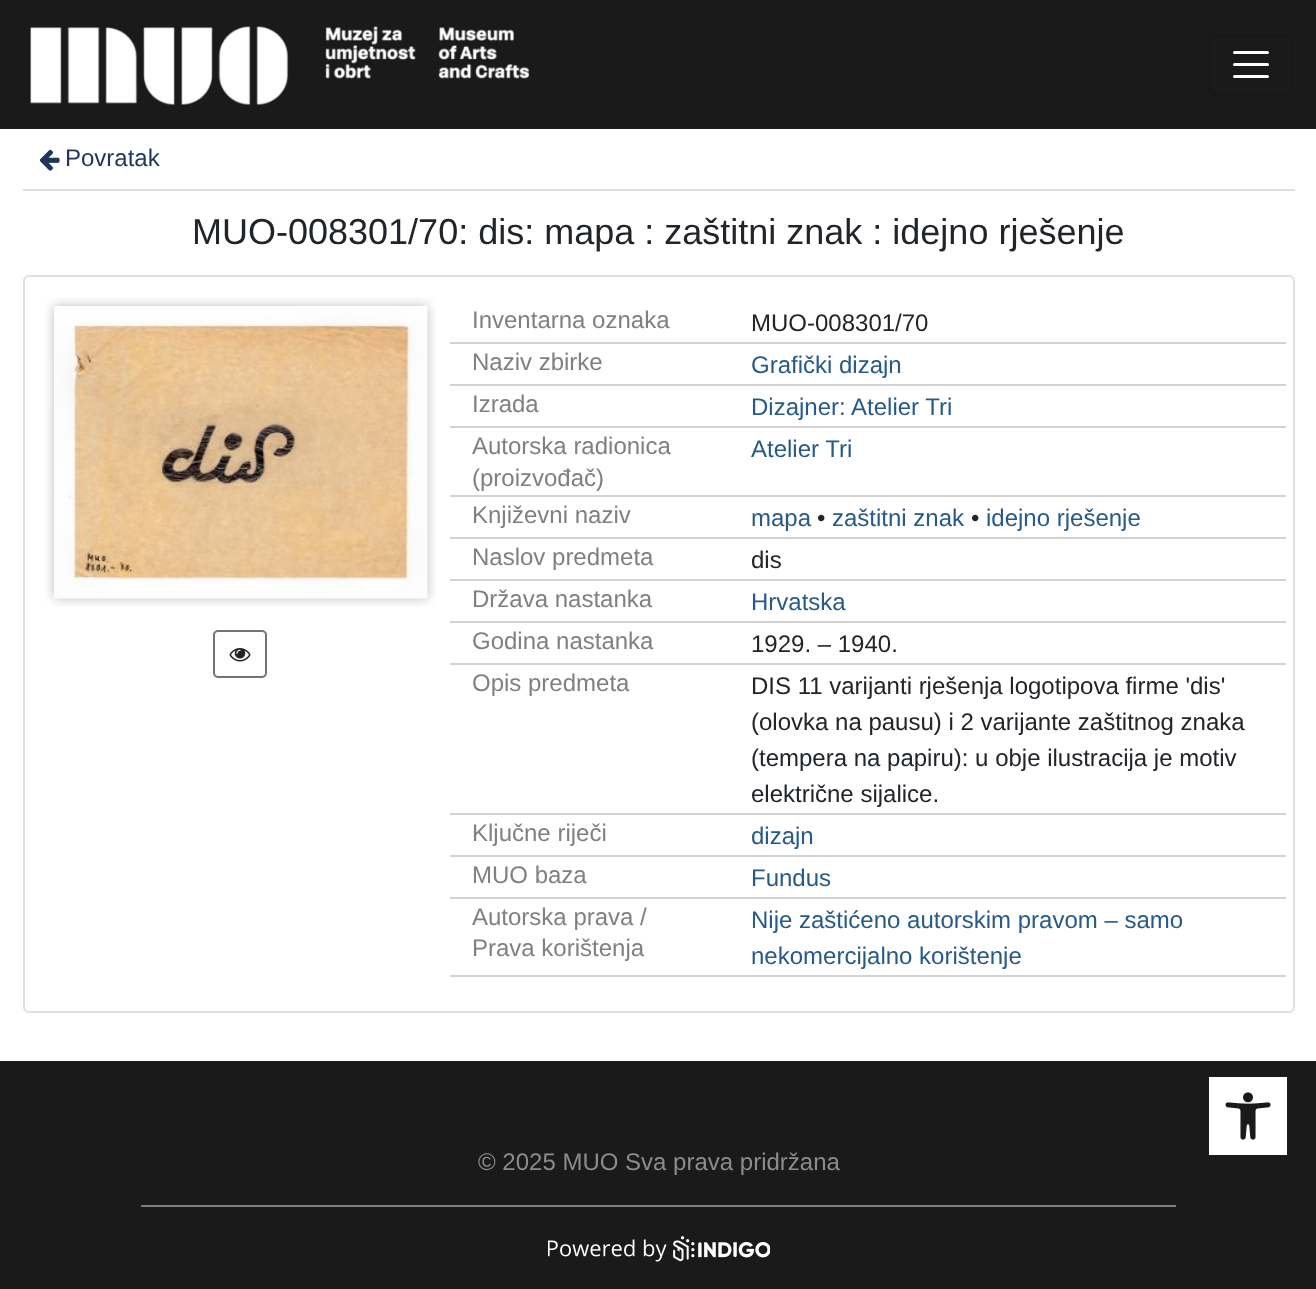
(async () => {
    const canvas = document.querySelector("canvas");
    canvas.width = 1316;
    canvas.height = 1289;
    const context = canvas.getContext("2d");
    context.miterLimit = 4;
    context.fontKerning = "normal";
    function write(s, x, y, font, color) {
        context.font = font;
        context.fillStyle = color;
        context.fillText(s, x, y);
    }
    function block(x, y, w, h, color) {
        context.fillStyle = color;
        context.fillRect(x, y, w, h);
    }
    async function photo(src, x, y, w, h) {
        const img = new Image();
        img.src = src;
        await img.decode();
        context.drawImage(img, x, y, w, h);
    }

    block(0, 0, 1316, 1289, "rgb(255, 255, 255)");
    block(0, 0, 1316, 129, "rgb(26, 26, 26)");
    await photo("media/1.png", 30, 26, 500, 79);
    context.beginPath();
    context.roundRect(1210, 36, 82, 58, 5);
    context.strokeStyle = "rgb(23, 23, 23)";
    context.lineWidth = 2;
    context.stroke();
    context.beginPath();
    context.moveTo(1234.5, 52.5);
    context.lineTo(1267.5, 52.5);
    context.moveTo(1234.5, 64.5);
    context.lineTo(1267.5, 64.5);
    context.moveTo(1234.5, 76.5);
    context.lineTo(1267.5, 76.5);
    context.strokeStyle = "rgb(255, 255, 255)";
    context.lineWidth = 3;
    context.lineCap = "round";
    context.stroke();
    block(23, 189, 1272, 2, "rgb(223, 223, 223)");
    await photo("media/2.png", 39, 149, 21, 22);
    write("Povratak", 65, 166, "24px Liberation Sans", "rgb(31, 54, 92)");
    write("MUO-008301/70: dis: mapa : zaštitni znak : idejno rješenje", 192, 244, "36px Liberation Sans", "rgb(33, 37, 41)");
    context.beginPath();
    context.roundRect(24, 276, 1270, 736, 5);
    context.strokeStyle = "rgb(223, 223, 223)";
    context.lineWidth = 2;
    context.stroke();
    await photo("media/3.png", 45, 297, 391, 310);
    context.beginPath();
    context.roundRect(214, 631, 52, 46, 4);
    context.strokeStyle = "rgb(108, 117, 125)";
    context.stroke();
    await photo("media/4.png", 229, 648, 22, 14);
    block(450, 342, 836, 2, "rgb(211, 211, 211)");
    write("Inventarna oznaka", 472, 328, "24px Liberation Sans", "rgb(128, 128, 128)");
    write("MUO-008301/70", 751, 331, "24px Liberation Sans", "rgb(33, 37, 41)");
    block(450, 384, 836, 2, "rgb(211, 211, 211)");
    write("Naziv zbirke", 472, 370, "24px Liberation Sans", "rgb(128, 128, 128)");
    write("Grafički dizajn", 751, 373, "24px Liberation Sans", "rgb(39, 90, 135)");
    block(450, 426, 836, 2, "rgb(211, 211, 211)");
    write("Izrada", 472, 412, "24px Liberation Sans", "rgb(128, 128, 128)");
    write("Dizajner: Atelier Tri", 751, 415, "24px Liberation Sans", "rgb(39, 90, 135)");
    block(450, 495, 836, 2, "rgb(211, 211, 211)");
    write("Autorska radionica", 472, 454, "24px Liberation Sans", "rgb(128, 128, 128)");
    write("(proizvođač)", 472, 486, "24px Liberation Sans", "rgb(128, 128, 128)");
    write("Atelier Tri", 751, 457, "24px Liberation Sans", "rgb(39, 90, 135)");
    block(450, 537, 836, 2, "rgb(211, 211, 211)");
    write("Književni naziv", 472, 523, "24px Liberation Sans", "rgb(128, 128, 128)");
    write("mapa", 751, 526, "24px Liberation Sans", "rgb(39, 90, 135)");
    write("•", 817, 526, "24px Liberation Sans", "rgb(33, 37, 41)");
    write("zaštitni znak", 832, 526, "24px Liberation Sans", "rgb(39, 90, 135)");
    write("•", 971, 526, "24px Liberation Sans", "rgb(33, 37, 41)");
    write("idejno rješenje", 986, 526, "24px Liberation Sans", "rgb(39, 90, 135)");
    block(450, 579, 836, 2, "rgb(211, 211, 211)");
    write("Naslov predmeta", 472, 565, "24px Liberation Sans", "rgb(128, 128, 128)");
    write("dis", 751, 568, "24px Liberation Sans", "rgb(33, 37, 41)");
    block(450, 621, 836, 2, "rgb(211, 211, 211)");
    write("Država nastanka", 472, 607, "24px Liberation Sans", "rgb(128, 128, 128)");
    write("Hrvatska", 751, 610, "24px Liberation Sans", "rgb(39, 90, 135)");
    block(450, 663, 836, 2, "rgb(211, 211, 211)");
    write("Godina nastanka", 472, 649, "24px Liberation Sans", "rgb(128, 128, 128)");
    write("1929. – 1940.", 751, 652, "24px Liberation Sans", "rgb(33, 37, 41)");
    block(450, 813, 836, 2, "rgb(211, 211, 211)");
    write("Opis predmeta", 472, 691, "24px Liberation Sans", "rgb(128, 128, 128)");
    write("DIS 11 varijanti rješenja logotipova firme 'dis'", 751, 694, "24px Liberation Sans", "rgb(33, 37, 41)");
    write("(olovka na pausu) i 2 varijante zaštitnog znaka", 751, 730, "24px Liberation Sans", "rgb(33, 37, 41)");
    write("(tempera na papiru): u obje ilustracija je motiv", 751, 766, "24px Liberation Sans", "rgb(33, 37, 41)");
    write("električne sijalice.", 751, 802, "24px Liberation Sans", "rgb(33, 37, 41)");
    block(450, 855, 836, 2, "rgb(211, 211, 211)");
    write("Ključne riječi", 472, 841, "24px Liberation Sans", "rgb(128, 128, 128)");
    write("dizajn", 751, 844, "24px Liberation Sans", "rgb(39, 90, 135)");
    block(450, 897, 836, 2, "rgb(211, 211, 211)");
    write("MUO baza", 472, 883, "24px Liberation Sans", "rgb(128, 128, 128)");
    write("Fundus", 751, 886, "24px Liberation Sans", "rgb(39, 90, 135)");
    block(450, 975, 836, 2, "rgb(211, 211, 211)");
    write("Autorska prava /", 472, 925, "24px Liberation Sans", "rgb(128, 128, 128)");
    write("Prava korištenja", 472, 956, "24px Liberation Sans", "rgb(128, 128, 128)");
    write("Nije zaštićeno autorskim pravom – samo", 751, 928, "24px Liberation Sans", "rgb(39, 90, 135)");
    write("nekomercijalno korištenje", 751, 964, "24px Liberation Sans", "rgb(39, 90, 135)");
    block(0, 1061, 1316, 228, "rgb(26, 26, 26)");
    block(1209, 1077, 78, 78, "rgb(255, 255, 255)");
    await photo("media/5.png", 1225, 1092, 46, 48);
    write("© 2025 MUO Sva prava pridržana", 478, 1170, "24px Liberation Sans", "rgb(139, 140, 141)");
    block(141, 1205, 1035, 2, "rgb(125, 126, 127)");
    await photo("media/6.png", 548, 1236, 222, 26);
})();
